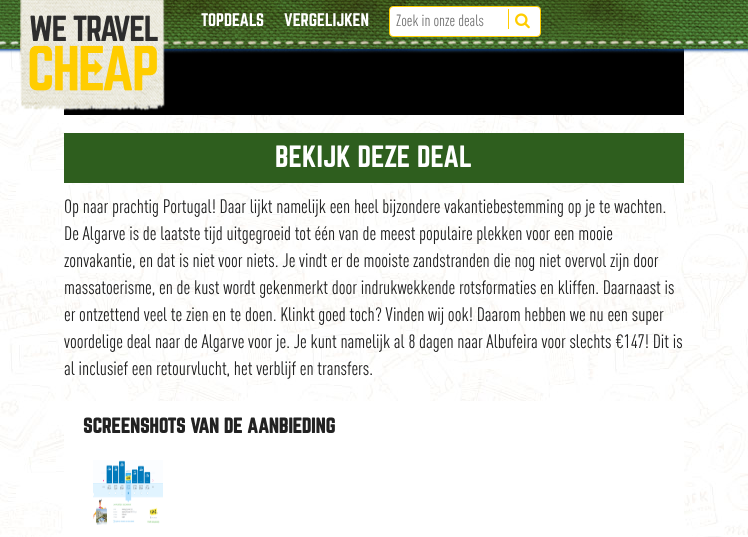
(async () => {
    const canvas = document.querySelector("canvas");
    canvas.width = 748;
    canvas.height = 537;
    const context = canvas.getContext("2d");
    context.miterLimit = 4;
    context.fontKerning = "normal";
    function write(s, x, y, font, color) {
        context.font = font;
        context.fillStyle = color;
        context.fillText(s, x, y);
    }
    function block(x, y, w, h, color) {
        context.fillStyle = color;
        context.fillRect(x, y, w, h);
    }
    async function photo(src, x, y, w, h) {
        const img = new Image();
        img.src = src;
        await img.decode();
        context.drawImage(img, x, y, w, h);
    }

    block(0, 0, 748, 537, "rgb(255, 255, 255)");
    await photo("media/1.png", 0, 47, 748, 490);
    block(64, 47, 620, 68, "rgb(0, 0, 0)");
    await photo("media/2.png", 0, 0, 748, 54);
    await photo("media/3.png", 20, 0, 145, 111);
    await photo("media/4.png", 29, 15, 129, 76);
    write("TOPDEALS", 201, 26, "16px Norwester", "rgb(255, 255, 255)");
    write("VERGELIJKEN", 284, 26, "16px Norwester", "rgb(255, 255, 255)");
    context.beginPath();
    context.roundRect(389.5, 6.5, 151, 30, 3.5);
    context.fill();
    context.strokeStyle = "rgb(255, 204, 0)";
    context.stroke();
    write("Zoek in onze deals", 396, 26, "16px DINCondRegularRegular", "rgb(117, 117, 117)");
    block(508, 9, 1, 20, "rgb(255, 204, 0)");
    await photo("media/5.png", 515, 13, 15, 16);
    block(64, 133, 620, 50, "rgb(46, 94, 30)");
    write("BEKIJK DEZE DEAL", 275, 167, "27px Norwester", "rgb(255, 255, 255)");
    write("Op naar prachtig Portugal! Daar lijkt namelijk een heel bijzondere vakantiebestemming op je te wachten.", 64, 213, "19.2px DINCondRegularRegular", "rgb(34, 34, 34)");
    write("De Algarve is de laatste tijd uitgegroeid tot één van de meest populaire plekken voor een mooie", 64, 240, "19.2px DINCondRegularRegular", "rgb(34, 34, 34)");
    write("zonvakantie, en dat is niet voor niets. Je vindt er de mooiste zandstranden die nog niet overvol zijn door", 64, 267, "19.2px DINCondRegularRegular", "rgb(34, 34, 34)");
    write("massatoerisme, en de kust wordt gekenmerkt door indrukwekkende rotsformaties en kliffen. Daarnaast is", 64, 294, "19.2px DINCondRegularRegular", "rgb(34, 34, 34)");
    write("er ontzettend veel te zien en te doen. Klinkt goed toch? Vinden wij ook! Daarom hebben we nu een super", 64, 321, "19.2px DINCondRegularRegular", "rgb(34, 34, 34)");
    write("voordelige deal naar de Algarve voor je. Je kunt namelijk al 8 dagen naar Albufeira voor slechts €147! Dit is", 64, 348, "19.2px DINCondRegularRegular", "rgb(34, 34, 34)");
    write("al inclusief een retourvlucht, het verblijf en transfers.", 64, 375, "19.2px DINCondRegularRegular", "rgb(34, 34, 34)");
    block(64, 401, 620, 136, "rgba(255, 255, 255, 0.95)");
    write("SCREENSHOTS VAN DE AANBIEDING", 83, 433, "bold 18.75px Norwester", "rgb(34, 34, 34)");
    await photo("media/6.png", 93, 460, 70, 65);
})();
